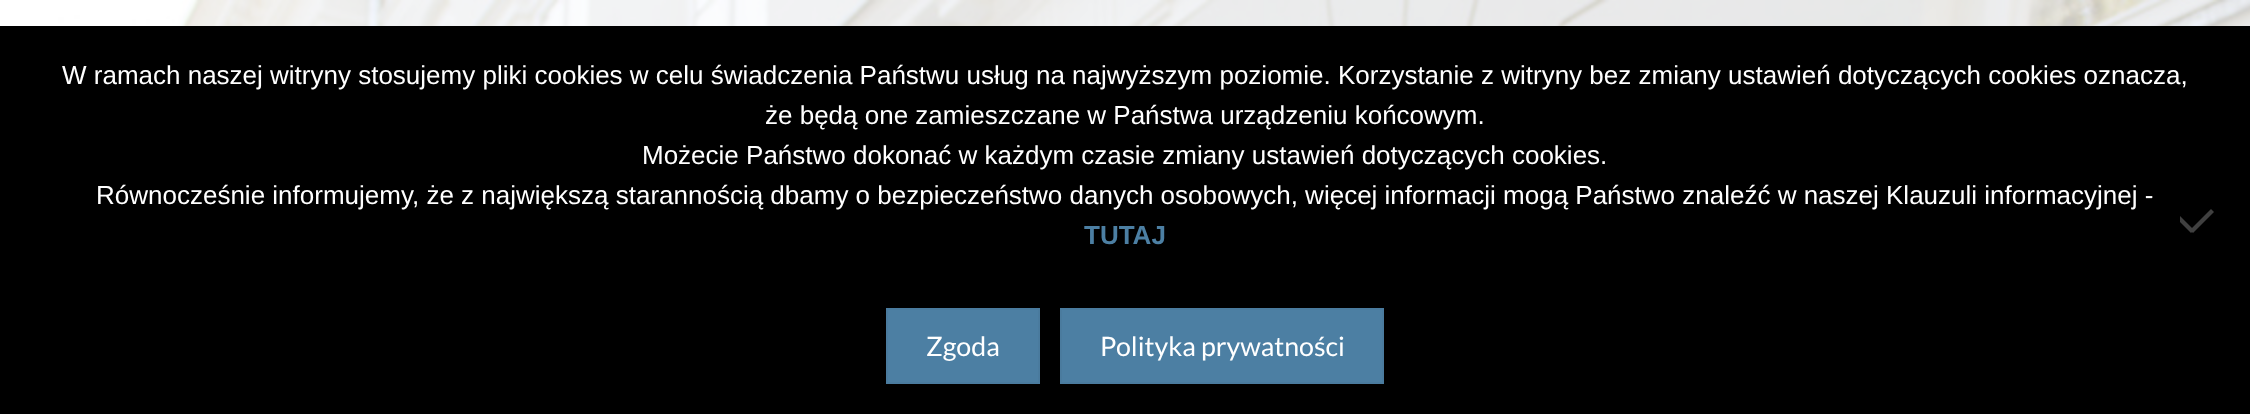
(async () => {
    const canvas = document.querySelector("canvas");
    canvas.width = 2250;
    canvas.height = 414;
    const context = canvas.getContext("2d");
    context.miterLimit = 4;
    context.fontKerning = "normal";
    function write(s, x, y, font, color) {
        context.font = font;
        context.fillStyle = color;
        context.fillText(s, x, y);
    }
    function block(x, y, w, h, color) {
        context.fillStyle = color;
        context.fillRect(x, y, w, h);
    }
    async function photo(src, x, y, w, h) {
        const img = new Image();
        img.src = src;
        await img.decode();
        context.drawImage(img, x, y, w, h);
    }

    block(0, 0, 2250, 414, "rgb(255, 255, 255)");
    await photo("media/1.png", 0, 0, 2250, 26);
    block(0, 26, 2250, 388, "rgb(0, 0, 0)");
    write("W ramach naszej witryny stosujemy pliki cookies w celu świadczenia Państwu usług na najwyższym poziomie. Korzystanie z witryny bez zmiany ustawień dotyczących cookies oznacza,", 62, 84, "26px Liberation Sans", "rgb(255, 255, 255)");
    write("że będą one zamieszczane w Państwa urządzeniu końcowym.", 765, 124, "26px Liberation Sans", "rgb(255, 255, 255)");
    write("Możecie Państwo dokonać w każdym czasie zmiany ustawień dotyczących cookies.", 642, 164, "26px Liberation Sans", "rgb(255, 255, 255)");
    write("Równocześnie informujemy, że z największą starannością dbamy o bezpieczeństwo danych osobowych, więcej informacji mogą Państwo znaleźć w naszej Klauzuli informacyjnej -", 96, 204, "26px Liberation Sans", "rgb(255, 255, 255)");
    write("TUTAJ", 1084, 244, "bold 26px Liberation Sans", "rgb(76, 127, 163)");
    context.fillStyle = "rgb(64, 64, 64)";
    context.beginPath();
    context.moveTo(2211, 209);
    context.lineTo(2214, 212);
    context.lineTo(2193, 233);
    context.lineTo(2190, 230);
    context.closePath();
    context.fill();
    context.save();
    context.beginPath();
    context.rect(2180, 200, 40, 40);
    context.clip();
    context.beginPath();
    context.moveTo(2170, 212);
    context.lineTo(2173, 209);
    context.lineTo(2194, 230);
    context.lineTo(2191, 233);
    context.closePath();
    context.fill();
    context.restore();
    context.fillStyle = "rgb(76, 127, 163)";
    context.beginPath();
    context.rect(887, 309, 152, 74);
    context.fill();
    context.strokeStyle = "rgb(74, 123, 158)";
    context.lineWidth = 2;
    context.stroke();
    write("Zgoda", 926, 356, "26.75px Lato", "rgb(255, 255, 255)");
    context.fillStyle = "rgb(76, 127, 163)";
    context.beginPath();
    context.rect(1061, 309, 322, 74);
    context.fill();
    context.stroke();
    write("Polityka prywatności", 1100, 356, "26.75px Lato", "rgb(255, 255, 255)");
})();
